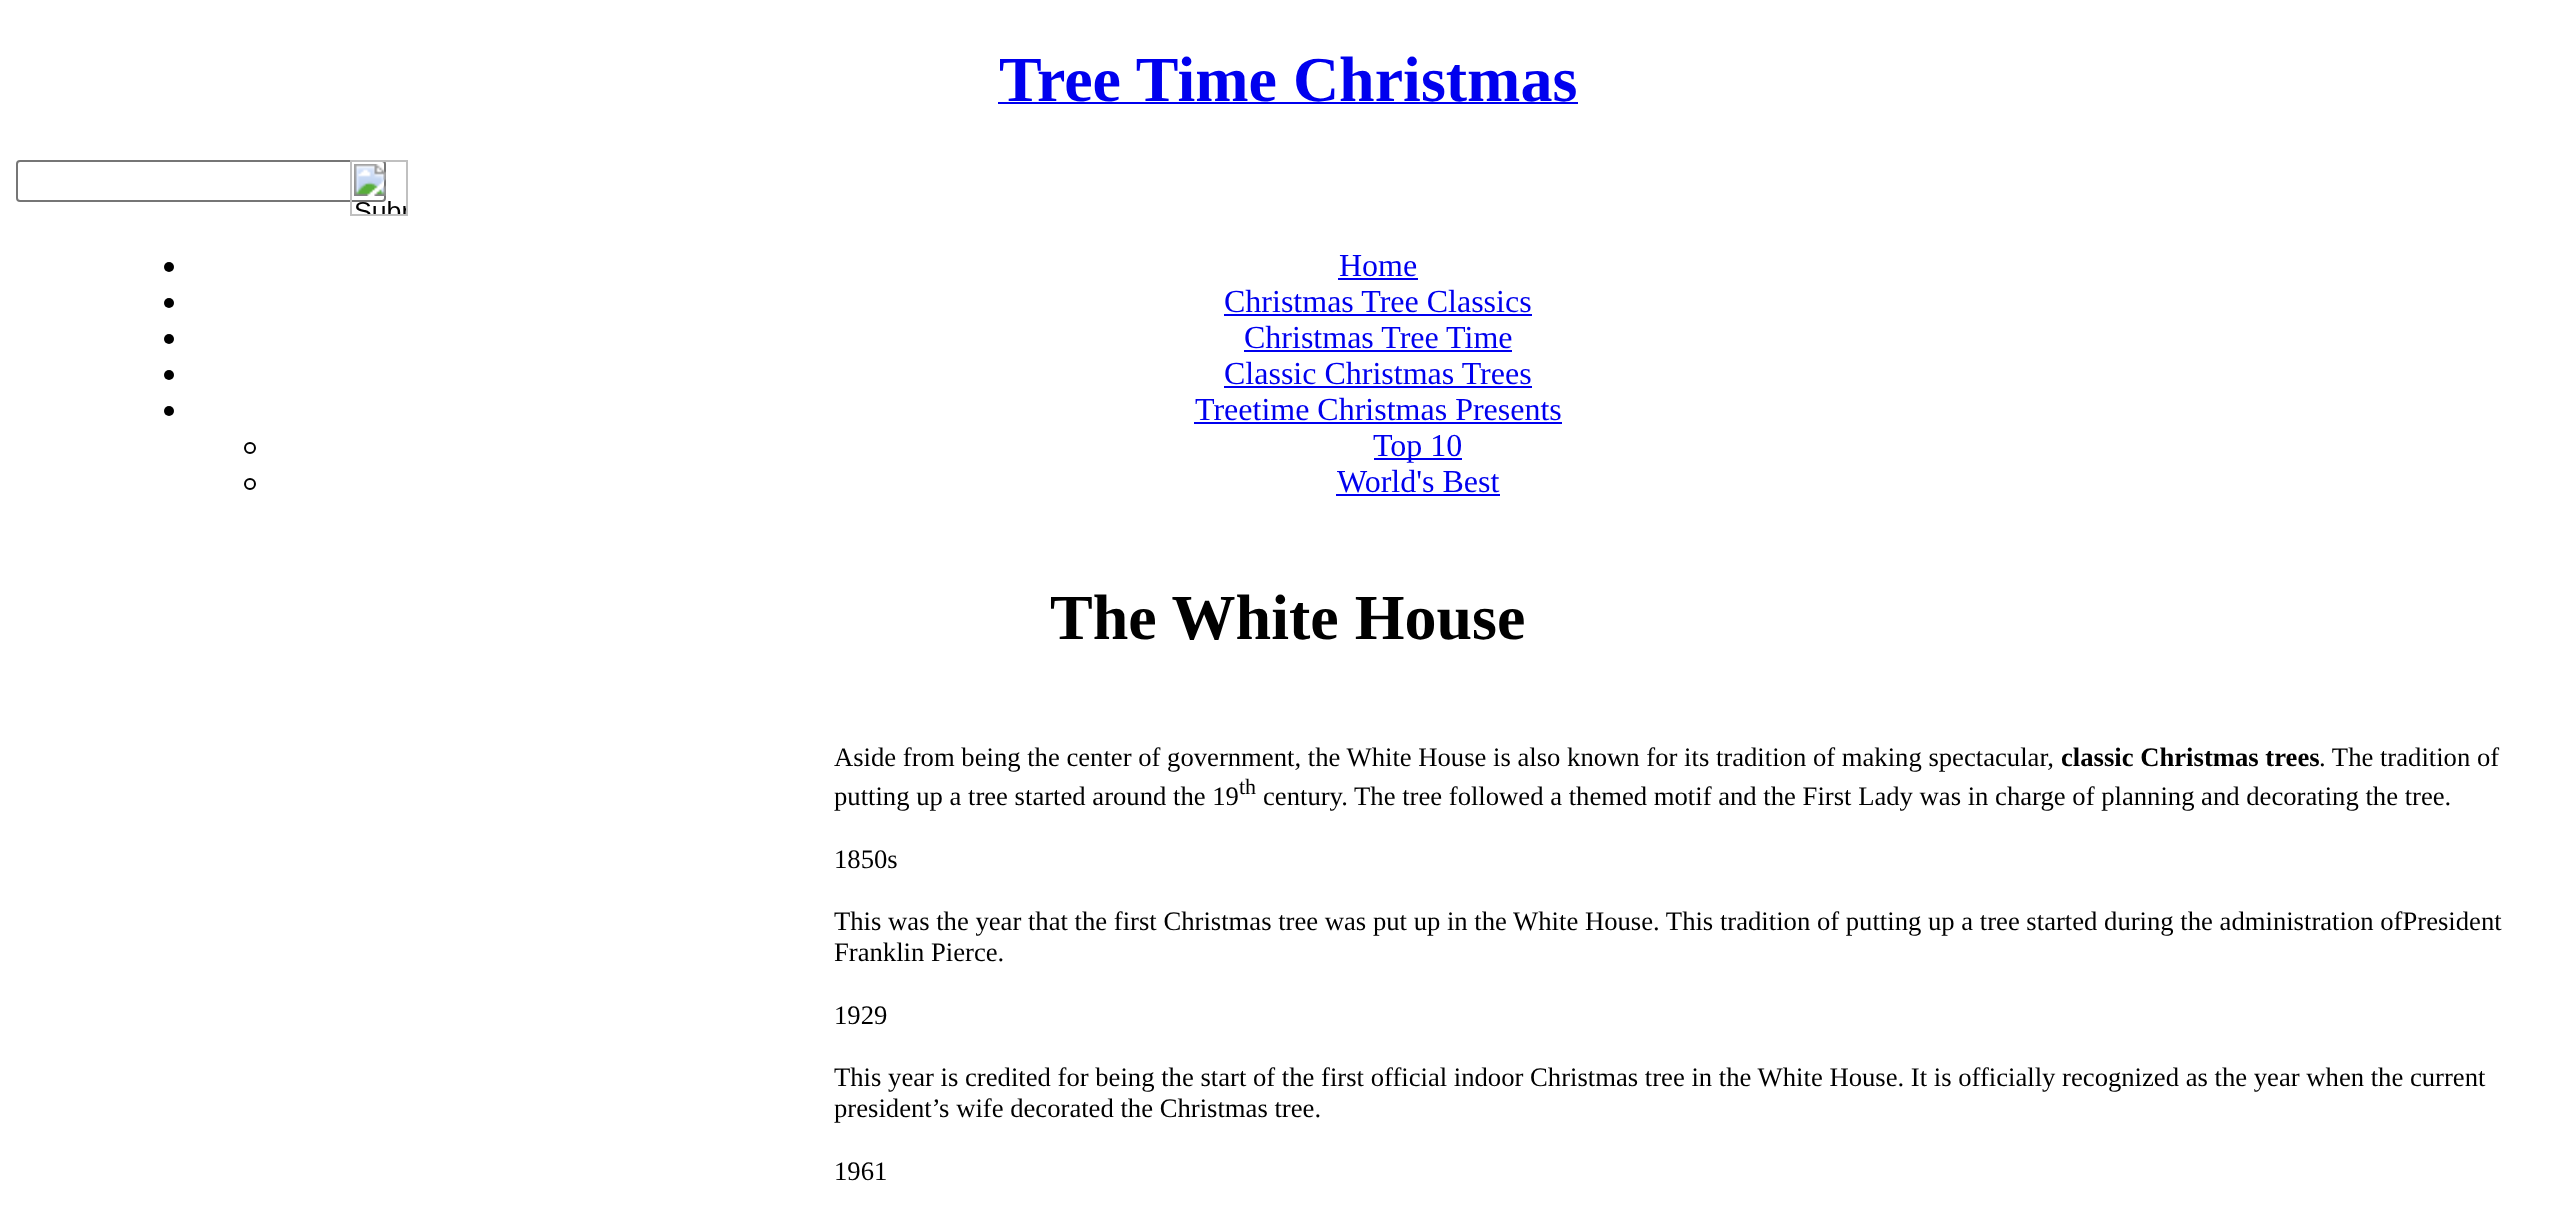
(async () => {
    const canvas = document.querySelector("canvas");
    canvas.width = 2575;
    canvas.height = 1210;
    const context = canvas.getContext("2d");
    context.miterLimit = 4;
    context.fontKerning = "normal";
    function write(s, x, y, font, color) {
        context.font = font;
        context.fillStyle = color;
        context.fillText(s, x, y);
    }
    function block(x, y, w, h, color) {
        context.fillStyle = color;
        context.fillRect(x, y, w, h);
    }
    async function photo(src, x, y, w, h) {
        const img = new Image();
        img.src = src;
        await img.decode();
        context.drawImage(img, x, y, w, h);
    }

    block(0, 0, 2575, 1210, "rgb(255, 255, 255)");
    write("Tree Time Christmas", 999, 101, "bold 64px Liberation Serif", "rgb(0, 0, 238)");
    block(998, 102, 580, 2, "rgb(0, 0, 238)");
    context.beginPath();
    context.roundRect(17, 161, 368, 40, 3);
    context.strokeStyle = "rgb(118, 118, 118)";
    context.lineWidth = 2;
    context.stroke();
    await photo("media/1.png", 350, 160, 58, 56);
    context.fillStyle = "rgb(0, 0, 0)";
    context.beginPath();
    context.arc(169, 267, 5, 0, Math.PI * 2);
    context.fill();
    write("Home", 1339, 276, "32px Liberation Serif", "rgb(0, 0, 238)");
    block(1338, 278, 80, 2, "rgb(0, 0, 238)");
    context.fillStyle = "rgb(0, 0, 0)";
    context.beginPath();
    context.arc(169, 303, 5, 0, Math.PI * 2);
    context.fill();
    write("Christmas Tree Classics", 1224, 312, "32px Liberation Serif", "rgb(0, 0, 238)");
    block(1224, 314, 308, 2, "rgb(0, 0, 238)");
    context.fillStyle = "rgb(0, 0, 0)";
    context.beginPath();
    context.arc(169, 339, 5, 0, Math.PI * 2);
    context.fill();
    write("Christmas Tree Time", 1244, 348, "32px Liberation Serif", "rgb(0, 0, 238)");
    block(1244, 350, 268, 2, "rgb(0, 0, 238)");
    context.fillStyle = "rgb(0, 0, 0)";
    context.beginPath();
    context.arc(169, 375, 5, 0, Math.PI * 2);
    context.fill();
    write("Classic Christmas Trees", 1224, 384, "32px Liberation Serif", "rgb(0, 0, 238)");
    block(1224, 386, 308, 2, "rgb(0, 0, 238)");
    context.fillStyle = "rgb(0, 0, 0)";
    context.beginPath();
    context.arc(169, 411, 5, 0, Math.PI * 2);
    context.fill();
    write("Treetime Christmas Presents", 1195, 420, "32px Liberation Serif", "rgb(0, 0, 238)");
    block(1194, 422, 368, 2, "rgb(0, 0, 238)");
    context.beginPath();
    context.arc(250, 448, 5, 0, Math.PI * 2);
    context.strokeStyle = "rgb(0, 0, 0)";
    context.stroke();
    block(1374, 458, 88, 2, "rgb(0, 0, 238)");
    write("Top 10", 1373, 456, "32px Liberation Serif", "rgb(0, 0, 238)");
    context.beginPath();
    context.arc(250, 484, 5, 0, Math.PI * 2);
    context.stroke();
    write("World's Best", 1337, 492, "32px Liberation Serif", "rgb(0, 0, 238)");
    block(1336, 494, 164, 2, "rgb(0, 0, 238)");
    write("The White House", 1050, 639, "bold 64px Liberation Serif", "rgb(0, 0, 0)");
    write("Aside from being the center of government, the White House is also known for its tradition of making spectacular,", 834, 766, "26.67px Liberation Serif", "rgb(0, 0, 0)");
    write("classic Christmas trees", 2061, 766, "bold 26.67px Liberation Serif", "rgb(0, 0, 0)");
    write(". The tradition of", 2319, 766, "26.67px Liberation Serif", "rgb(0, 0, 0)");
    write("putting up a tree started around the 19", 834, 805, "26.67px Liberation Serif", "rgb(0, 0, 0)");
    write("th", 1239, 794, "22px Liberation Serif", "rgb(0, 0, 0)");
    write("century. The tree followed a themed motif and the First Lady was in charge of planning and decorating the tree.", 1263, 805, "26.67px Liberation Serif", "rgb(0, 0, 0)");
    write("1850s", 834, 868, "26.67px Liberation Serif", "rgb(0, 0, 0)");
    write("This was the year that the first Christmas tree was put up in the White House. This tradition of putting up a tree started during the administration ofPresident", 834, 930, "26.67px Liberation Serif", "rgb(0, 0, 0)");
    write("Franklin Pierce.", 834, 961, "26.67px Liberation Serif", "rgb(0, 0, 0)");
    write("1929", 834, 1024, "26.67px Liberation Serif", "rgb(0, 0, 0)");
    write("This year is credited for being the start of the first official indoor Christmas tree in the White House. It is officially recognized as the year when the current", 834, 1086, "26.67px Liberation Serif", "rgb(0, 0, 0)");
    write("president’s wife decorated the Christmas tree.", 834, 1117, "26.67px Liberation Serif", "rgb(0, 0, 0)");
    write("1961", 834, 1180, "26.67px Liberation Serif", "rgb(0, 0, 0)");
})();
